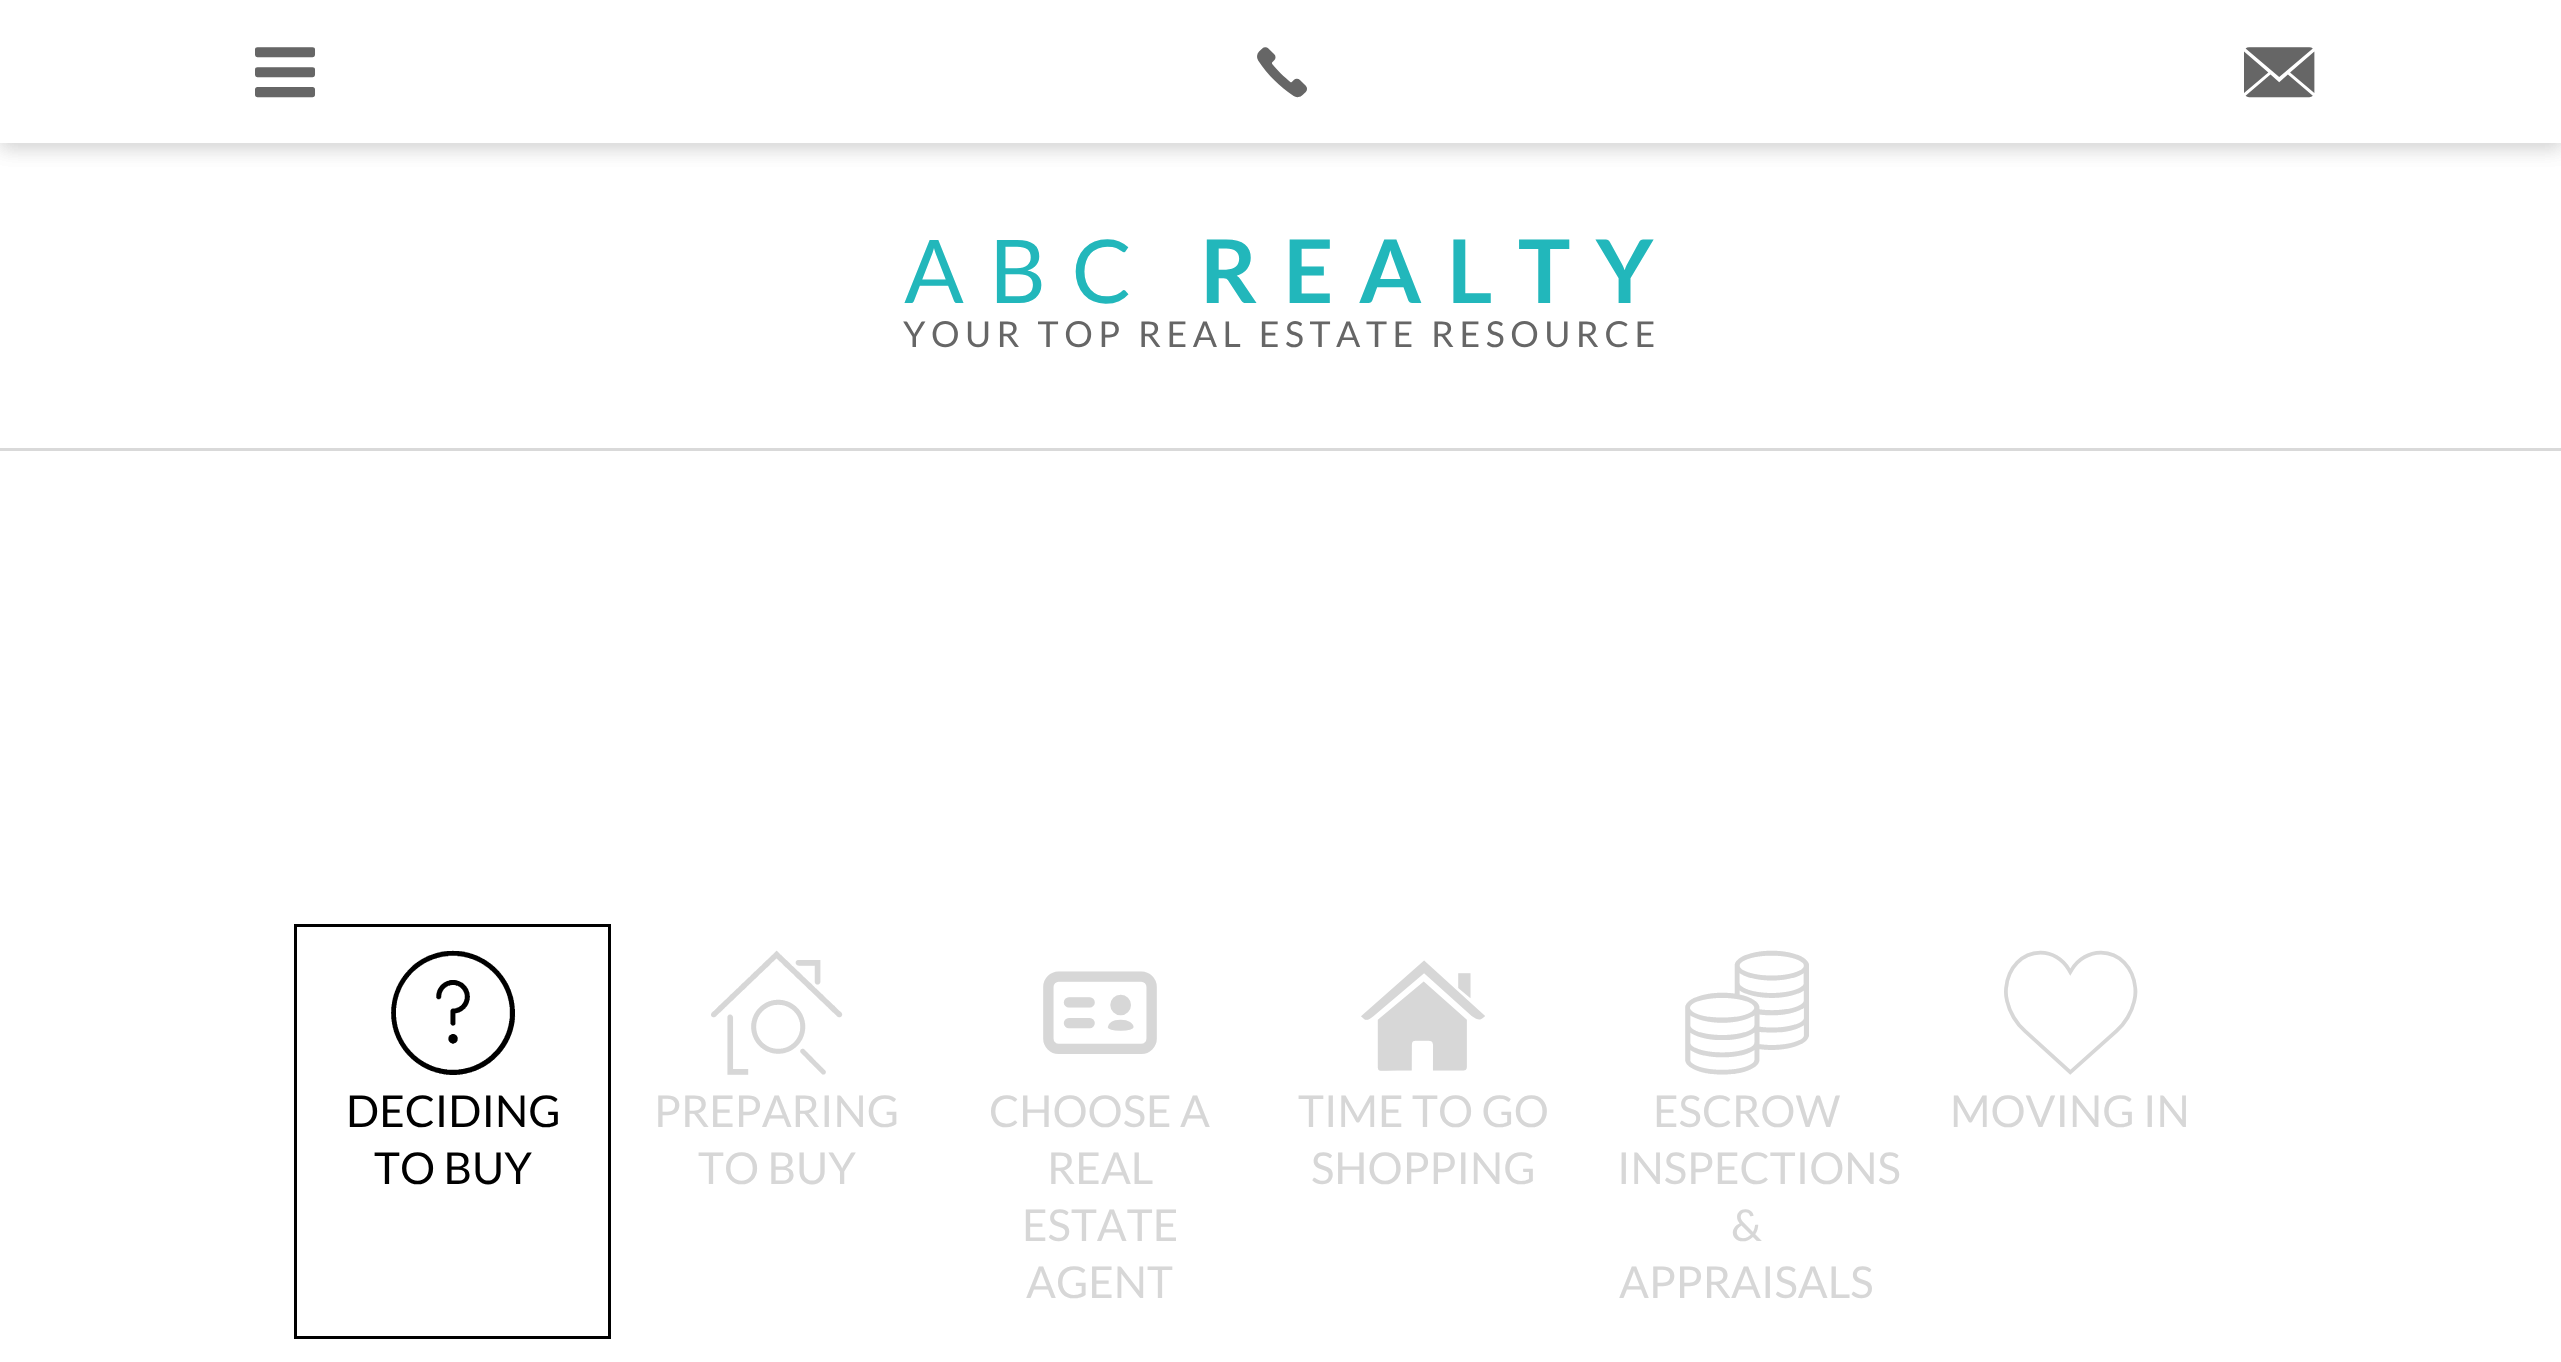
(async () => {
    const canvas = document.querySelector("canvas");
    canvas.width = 2561;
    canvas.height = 1362;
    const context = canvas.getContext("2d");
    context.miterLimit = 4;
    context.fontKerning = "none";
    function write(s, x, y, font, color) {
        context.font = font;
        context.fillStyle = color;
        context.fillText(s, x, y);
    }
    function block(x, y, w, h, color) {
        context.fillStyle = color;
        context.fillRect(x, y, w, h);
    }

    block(0, 0, 2561, 1362, "rgb(255, 255, 255)");
    context.fillStyle = "rgba(0, 1, 1, 0.09)";
    context.filter = "blur(9.5px)";
    context.beginPath();
    context.rect(0, 6, 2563, 143);
    context.fill();
    context.filter = "none";
    context.filter = "blur(9.5px)";
    context.beginPath();
    context.rect(0, 6, 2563, 143);
    context.fill();
    context.filter = "none";
    block(0, 0, 2561, 143, "rgb(255, 255, 255)");
    write("򰁰", 255, 94, "50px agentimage", "rgb(102, 102, 102)");
    write("򰁩", 1257, 94, "50px agentimage", "rgb(102, 102, 102)");
    write("򰄢", 2244, 94, "50px agentimage", "rgb(102, 102, 102)");
    block(0, 448, 2561, 3, "rgb(217, 217, 217)");
    context.letterSpacing = "25.5px";
    write("ABC", 904, 303, "88px Lato", "rgb(34, 183, 187)");
    write("REALTY", 1200, 303, "bold 88px Lato", "rgb(34, 183, 187)");
    context.letterSpacing = "5.5px";
    write("YOUR TOP REAL ESTATE", 903, 347, "35.75px Lato", "rgb(102, 102, 102)");
    write("RESOURCE", 1431, 347, "35.75px Lato", "rgb(102, 102, 102)");
    context.strokeStyle = "rgb(0, 0, 0)";
    context.lineWidth = 3;
    context.strokeRect(295.5, 925.5, 314, 412);
    context.letterSpacing = "0px";
    write("򰁲", 391, 1067, "124px agentimage", "rgb(0, 0, 0)");
    write("DECIDING", 346, 1127, "44px Lato", "rgb(0, 0, 0)");
    write("TO BUY", 374, 1184, "44px Lato", "rgb(0, 0, 0)");
    write("򰁕", 711, 1067, "124px agentimage", "rgb(215, 215, 215)");
    write("PREPARING", 654, 1127, "44px Lato", "rgb(215, 215, 215)");
    write("TO BUY", 698, 1184, "44px Lato", "rgb(215, 215, 215)");
    write("򰌃", 1038, 1067, "124px agentimage", "rgb(215, 215, 215)");
    write("CHOOSE A", 989, 1127, "44px Lato", "rgb(215, 215, 215)");
    write("REAL", 1047, 1184, "44px Lato", "rgb(215, 215, 215)");
    write("ESTATE", 1022, 1241, "44px Lato", "rgb(215, 215, 215)");
    write("AGENT", 1026, 1298, "44px Lato", "rgb(215, 215, 215)");
    write("򰄨", 1361, 1067, "124px agentimage", "rgb(215, 215, 215)");
    write("TIME TO GO", 1298, 1127, "44px Lato", "rgb(215, 215, 215)");
    write("SHOPPING", 1311, 1184, "44px Lato", "rgb(215, 215, 215)");
    write("򰁑", 1685, 1067, "124px agentimage", "rgb(215, 215, 215)");
    write("ESCROW", 1653, 1127, "44px Lato", "rgb(215, 215, 215)");
    write("INSPECTIONS", 1617, 1184, "44px Lato", "rgb(215, 215, 215)");
    write("&", 1731, 1241, "44px Lato", "rgb(215, 215, 215)");
    write("APPRAISALS", 1619, 1298, "44px Lato", "rgb(215, 215, 215)");
    write("򰈷", 2004, 1067, "124px agentimage", "rgb(215, 215, 215)");
    write("MOVING IN", 1950, 1127, "44px Lato", "rgb(215, 215, 215)");
})();
